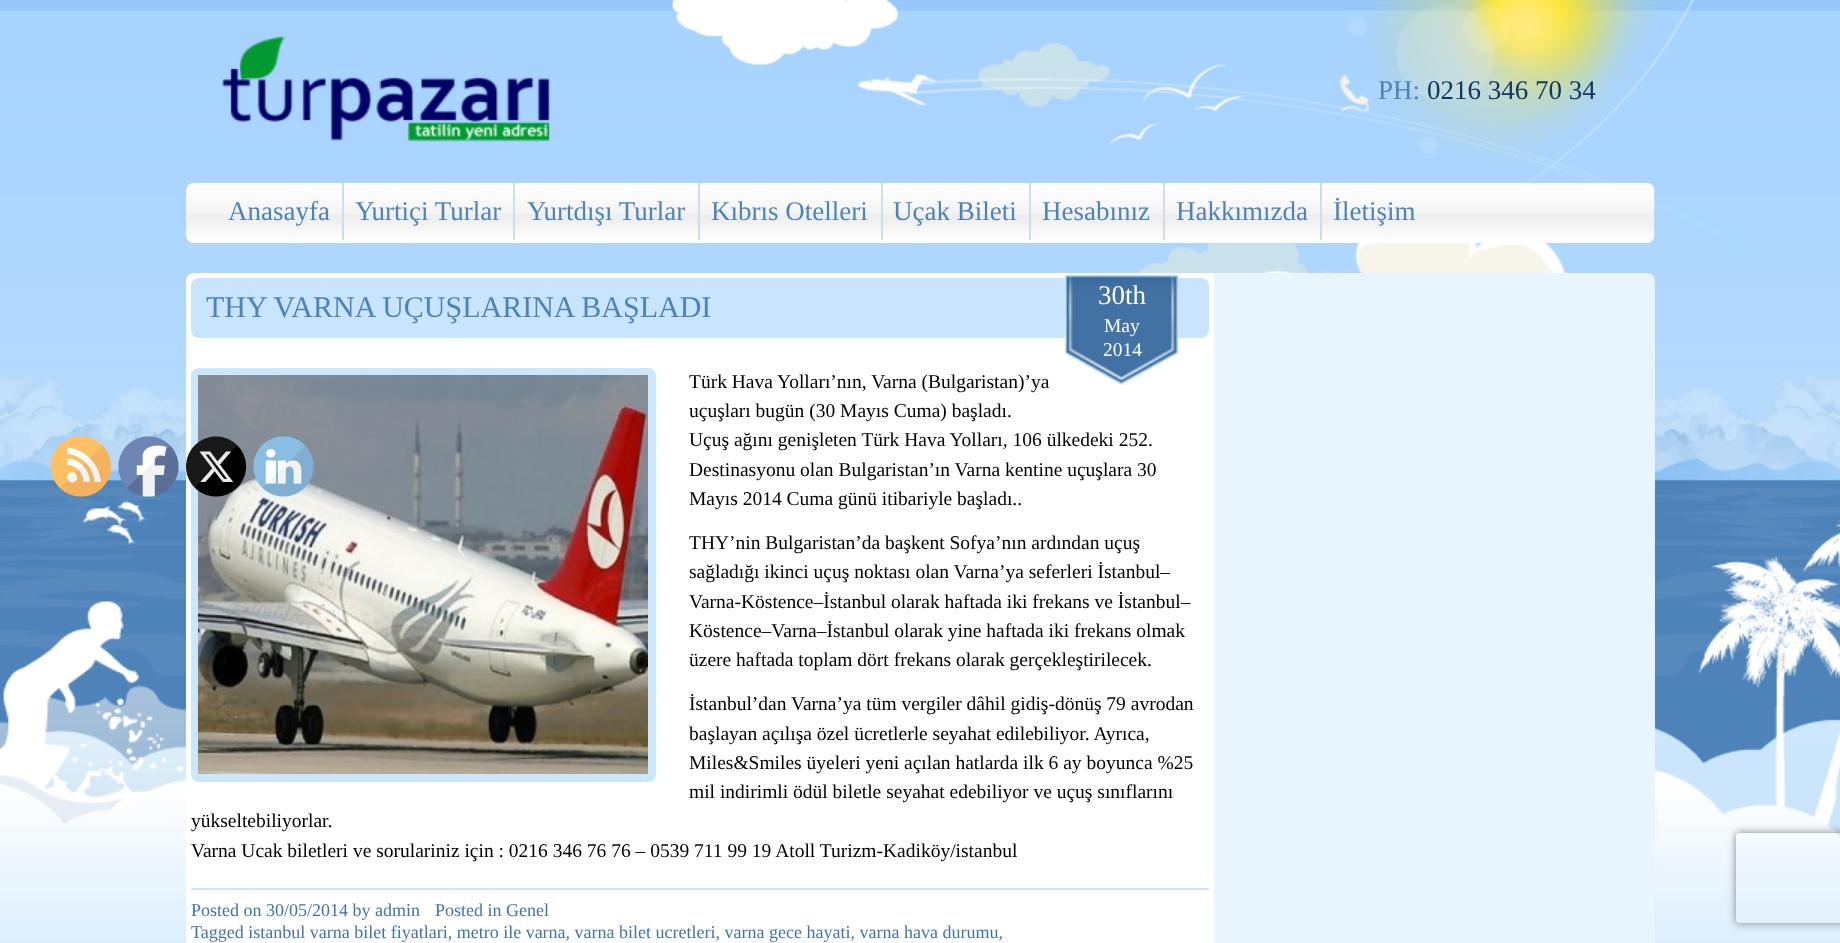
(async () => {
    const canvas = document.querySelector("canvas");
    canvas.width = 1840;
    canvas.height = 943;
    const context = canvas.getContext("2d");
    context.miterLimit = 4;
    context.fontKerning = "normal";
    function write(s, x, y, font, color) {
        context.font = font;
        context.fillStyle = color;
        context.fillText(s, x, y);
    }
    function block(x, y, w, h, color) {
        context.fillStyle = color;
        context.fillRect(x, y, w, h);
    }
    function card(x, y, w, h, r, color) {
        context.fillStyle = color;
        context.beginPath();
        context.roundRect(x, y, w, h, r);
        context.fill();
    }
    async function photo(src, x, y, w, h) {
        const img = new Image();
        img.src = src;
        await img.decode();
        context.drawImage(img, x, y, w, h);
    }

    block(0, 0, 1840, 943, "rgb(255, 255, 255)");
    await photo("media/1.png", 0, 0, 1840, 766);
    await photo("media/6.png", 42, 719, 1798, 119);
    await photo("media/7.png", 0, 0, 1840, 827);
    await photo("media/2.png", 51, 436, 60, 61);
    await photo("media/3.png", 118, 436, 61, 61);
    await photo("media/8.png", 0, 769, 1840, 174);
    card(186, 273, 1469, 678, 8, "rgb(232, 244, 254)");
    context.fillStyle = "rgb(255, 255, 255)";
    context.beginPath();
    context.moveTo(194, 273);
    context.lineTo(1214, 273);
    context.lineTo(1214, 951);
    context.lineTo(194, 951);
    context.bezierCurveTo(189.5, 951, 186, 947.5, 186, 943);
    context.lineTo(186, 281);
    context.bezierCurveTo(186, 276.5, 189.5, 273, 194, 273);
    context.closePath();
    context.fill();
    card(191, 368, 465, 414, 8, "rgb(204, 230, 252)");
    await photo("media/13.png", 198, 375, 450, 399);
    await photo("media/4.png", 186, 436, 60, 61);
    await photo("media/5.png", 253, 436, 61, 61);
    await photo("media/9.png", 221, 35, 329, 107);
    await photo("media/10.png", 1339, 74, 31, 38);
    write("PH:", 1378, 99, "27px Liberation Serif", "rgb(78, 131, 184)");
    write("0216 346 70 34", 1427, 99, "27px Liberation Serif", "rgb(16, 56, 96)");
    await photo("media/11.png", 186, 183, 1469, 60);
    block(342, 183, 2, 57, "rgb(201, 225, 235)");
    write("Anasayfa", 228, 220, "27px Liberation Serif", "rgb(78, 131, 184)");
    block(513, 183, 2, 57, "rgb(201, 225, 235)");
    write("Yurtiçi Turlar", 355, 220, "27px Liberation Serif", "rgb(78, 131, 184)");
    block(698, 183, 2, 57, "rgb(201, 225, 235)");
    write("Yurtdışı Turlar", 527, 220, "27px Liberation Serif", "rgb(78, 131, 184)");
    block(881, 183, 2, 57, "rgb(201, 225, 235)");
    write("Kıbrıs Otelleri", 711, 220, "27px Liberation Serif", "rgb(78, 131, 184)");
    block(1029, 183, 2, 57, "rgb(201, 225, 235)");
    write("Uçak Bileti", 893, 220, "27px Liberation Serif", "rgb(78, 131, 184)");
    block(1163, 183, 2, 57, "rgb(201, 225, 235)");
    write("Hesabınız", 1042, 220, "27px Liberation Serif", "rgb(78, 131, 184)");
    block(1320, 183, 2, 57, "rgb(201, 225, 235)");
    write("Hakkımızda", 1176, 220, "27px Liberation Serif", "rgb(78, 131, 184)");
    write("İletişim", 1333, 220, "27px Liberation Serif", "rgb(78, 131, 184)");
    card(191, 278, 1018, 60, 8, "rgb(201, 228, 254)");
    await photo("media/12.png", 1065, 274, 114, 111);
    write("30th", 1098, 304, "27px Liberation Serif", "rgb(255, 255, 255)");
    write("May", 1104, 332, "19.5px Liberation Serif", "rgb(255, 255, 255)");
    write("2014", 1103, 356, "19.5px Liberation Serif", "rgb(255, 255, 255)");
    write("Türk Hava Yolları’nın, Varna (Bulgaristan)’ya", 689, 388, "19.5px Liberation Serif", "rgb(0, 0, 0)");
    write("uçuşları bugün (30 Mayıs Cuma) başladı.", 689, 417, "19.5px Liberation Serif", "rgb(0, 0, 0)");
    write("Uçuş ağını genişleten Türk Hava Yolları, 106 ülkedeki 252.", 689, 446, "19.5px Liberation Serif", "rgb(0, 0, 0)");
    write("Destinasyonu olan Bulgaristan’ın Varna kentine uçuşlara 30", 689, 476, "19.5px Liberation Serif", "rgb(0, 0, 0)");
    write("Mayıs 2014 Cuma günü itibariyle başladı..", 689, 505, "19.5px Liberation Serif", "rgb(0, 0, 0)");
    write("THY’nin Bulgaristan’da başkent Sofya’nın ardından uçuş", 689, 549, "19.5px Liberation Serif", "rgb(0, 0, 0)");
    write("sağladığı ikinci uçuş noktası olan Varna’ya seferleri İstanbul–", 689, 578, "19.5px Liberation Serif", "rgb(0, 0, 0)");
    write("Varna-Köstence–İstanbul olarak haftada iki frekans ve İstanbul–", 689, 608, "19.5px Liberation Serif", "rgb(0, 0, 0)");
    write("Köstence–Varna–İstanbul olarak yine haftada iki frekans olmak", 689, 637, "19.5px Liberation Serif", "rgb(0, 0, 0)");
    write("üzere haftada toplam dört frekans olarak gerçekleştirilecek.", 689, 666, "19.5px Liberation Serif", "rgb(0, 0, 0)");
    write("İstanbul’dan Varna’ya tüm vergiler dâhil gidiş-dönüş 79 avrodan", 689, 710, "19.5px Liberation Serif", "rgb(0, 0, 0)");
    write("başlayan açılışa özel ücretlerle seyahat edilebiliyor. Ayrıca,", 689, 740, "19.5px Liberation Serif", "rgb(0, 0, 0)");
    write("Miles&Smiles üyeleri yeni açılan hatlarda ilk 6 ay boyunca %25", 689, 769, "19.5px Liberation Serif", "rgb(0, 0, 0)");
    write("mil indirimli ödül biletle seyahat edebiliyor ve uçuş sınıflarını", 689, 798, "19.5px Liberation Serif", "rgb(0, 0, 0)");
    write("yükseltebiliyorlar.", 191, 827, "19.5px Liberation Serif", "rgb(0, 0, 0)");
    write("Varna Ucak biletleri ve sorulariniz için : 0216 346 76 76 – 0539 711 99 19 Atoll Turizm-Kadiköy/istanbul", 191, 857, "19.5px Liberation Serif", "rgb(0, 0, 0)");
    write("THY VARNA UÇUŞLARINA BAŞLADI", 206, 317, "30px Liberation Serif", "rgb(78, 131, 184)");
    block(191, 888, 1018, 2, "rgb(203, 229, 255)");
    write("Posted on 30/05/2014 by admin", 191, 916, "18px Liberation Serif", "rgb(67, 114, 170)");
    write("Posted in Genel", 435, 916, "18px Liberation Serif", "rgb(67, 114, 170)");
    write("Tagged istanbul varna bilet fiyatlari, metro ile varna, varna bilet ucretleri, varna gece hayati, varna hava durumu,", 191, 938, "18px Liberation Serif", "rgb(67, 114, 170)");
    context.save();
    context.beginPath();
    context.moveTo(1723, 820);
    context.lineTo(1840, 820);
    context.lineTo(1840, 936);
    context.lineTo(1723, 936);
    context.closePath();
    context.moveTo(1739, 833);
    context.lineTo(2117, 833);
    context.bezierCurveTo(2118.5, 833, 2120, 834.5, 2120, 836);
    context.lineTo(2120, 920);
    context.bezierCurveTo(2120, 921.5, 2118.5, 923, 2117, 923);
    context.lineTo(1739, 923);
    context.bezierCurveTo(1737.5, 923, 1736, 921.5, 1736, 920);
    context.lineTo(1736, 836);
    context.bezierCurveTo(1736, 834.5, 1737.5, 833, 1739, 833);
    context.closePath();
    context.clip("evenodd");
    context.fillStyle = "rgb(128, 128, 128)";
    context.filter = "blur(4px)";
    context.beginPath();
    context.roundRect(1736, 833, 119, 90, 3);
    context.fill();
    context.filter = "none";
    context.restore();
})();
